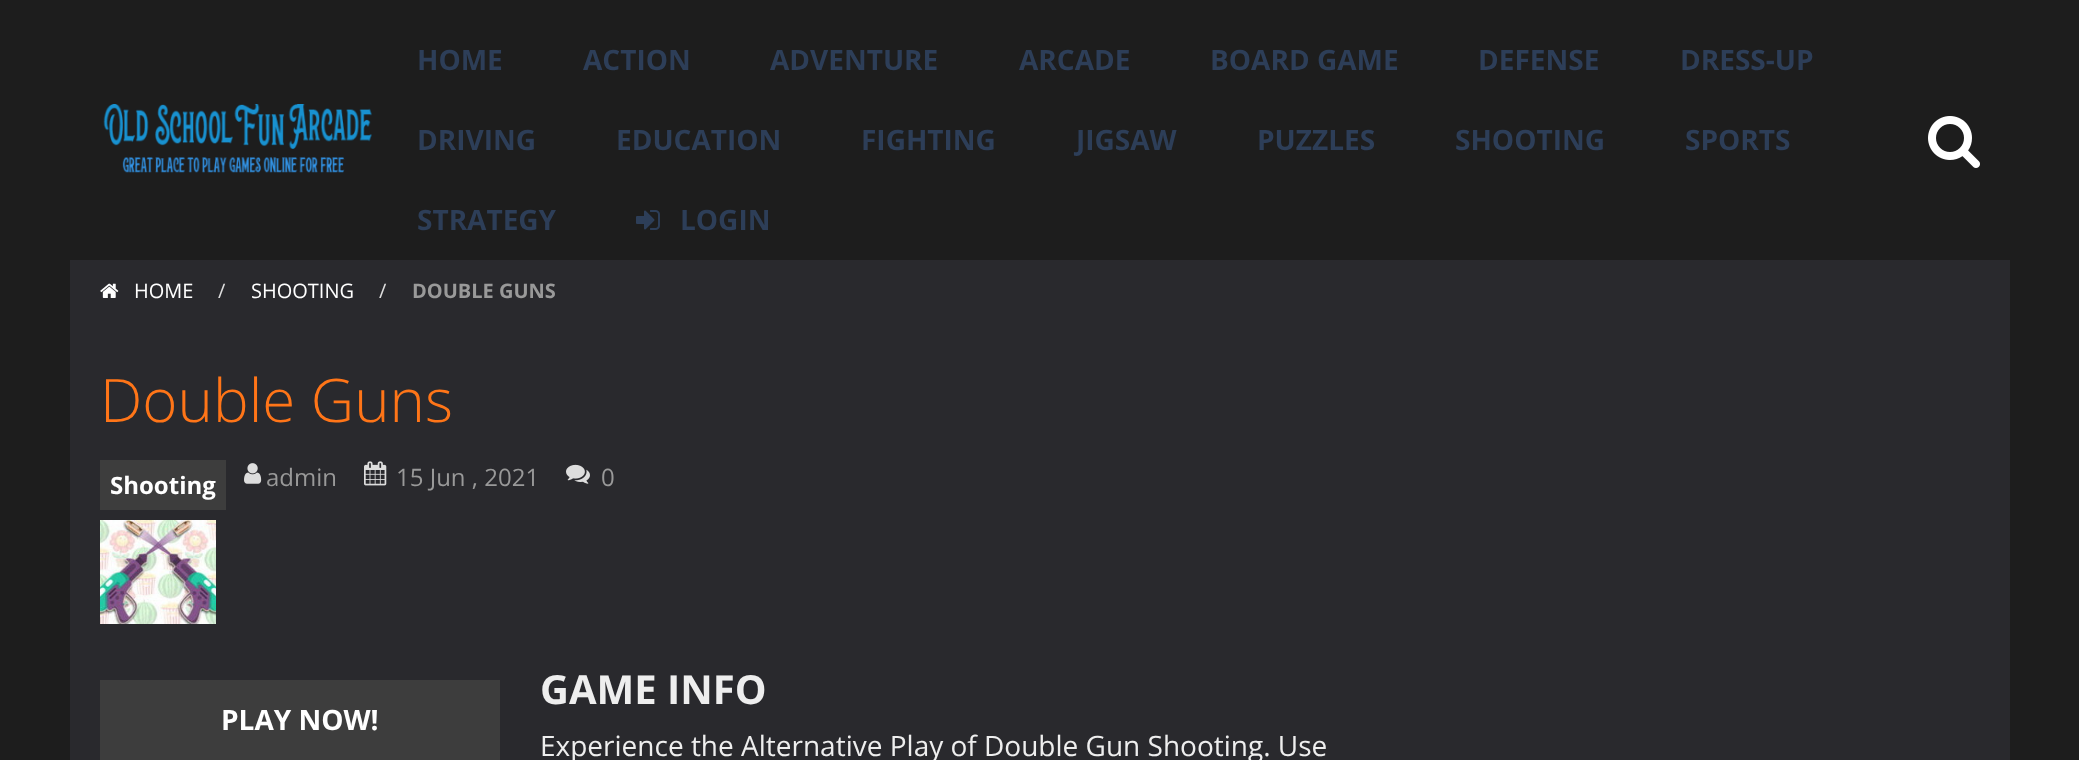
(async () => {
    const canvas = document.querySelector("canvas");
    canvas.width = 2079;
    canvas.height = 760;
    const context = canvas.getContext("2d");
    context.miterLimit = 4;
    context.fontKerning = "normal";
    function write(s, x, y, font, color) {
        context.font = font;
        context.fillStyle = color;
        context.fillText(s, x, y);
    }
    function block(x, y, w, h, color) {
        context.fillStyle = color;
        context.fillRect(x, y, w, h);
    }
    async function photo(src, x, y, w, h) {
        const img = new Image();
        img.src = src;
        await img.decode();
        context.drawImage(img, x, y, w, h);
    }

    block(0, 0, 2079, 760, "rgb(29, 29, 29)");
    await photo("media/1.png", 103, 104, 269, 69);
    write("HOME", 417, 70, "bold 28px Open Sans", "rgb(45, 62, 88)");
    write("ACTION", 583, 70, "bold 28px Open Sans", "rgb(45, 62, 88)");
    write("ADVENTURE", 770, 70, "bold 28px Open Sans", "rgb(45, 62, 88)");
    write("ARCADE", 1019, 70, "bold 28px Open Sans", "rgb(45, 62, 88)");
    write("BOARD GAME", 1210, 70, "bold 28px Open Sans", "rgb(45, 62, 88)");
    write("DEFENSE", 1478, 70, "bold 28px Open Sans", "rgb(45, 62, 88)");
    write("DRESS-UP", 1680, 70, "bold 28px Open Sans", "rgb(45, 62, 88)");
    write("DRIVING", 417, 150, "bold 28px Open Sans", "rgb(45, 62, 88)");
    write("EDUCATION", 616, 150, "bold 28px Open Sans", "rgb(45, 62, 88)");
    write("FIGHTING", 861, 150, "bold 28px Open Sans", "rgb(45, 62, 88)");
    write("JIGSAW", 1076, 150, "bold 28px Open Sans", "rgb(45, 62, 88)");
    write("PUZZLES", 1257, 150, "bold 28px Open Sans", "rgb(45, 62, 88)");
    write("SHOOTING", 1455, 150, "bold 28px Open Sans", "rgb(45, 62, 88)");
    write("SPORTS", 1685, 150, "bold 28px Open Sans", "rgb(45, 62, 88)");
    write("STRATEGY", 417, 230, "bold 28px Open Sans", "rgb(45, 62, 88)");
    await photo("media/2.png", 636, 210, 24, 20);
    write("LOGIN", 680, 230, "bold 28px Open Sans", "rgb(45, 62, 88)");
    await photo("media/3.png", 1928, 116, 52, 52);
    block(70, 260, 1940, 500, "rgb(41, 41, 45)");
    await photo("media/4.png", 100, 283, 19, 15);
    write("HOME", 134, 298, "20px Open Sans", "rgb(255, 255, 255)");
    write("/", 218, 298, "20px Open Sans", "rgb(221, 221, 221)");
    write("SHOOTING", 251, 298, "20px Open Sans", "rgb(255, 255, 255)");
    write("/", 379, 298, "20px Open Sans", "rgb(221, 221, 221)");
    write("DOUBLE GUNS", 412, 298, "bold 20px Open Sans", "rgb(153, 153, 153)");
    write("Double Guns", 100, 422, "300 60px Open Sans", "rgb(255, 117, 24)");
    block(100, 460, 126, 50, "rgb(61, 61, 61)");
    write("Shooting", 110, 494, "bold 24px Open Sans", "rgb(255, 255, 255)");
    await photo("media/5.png", 244, 463, 18, 21);
    write("admin", 266, 486, "24px Open Sans", "rgb(153, 153, 153)");
    await photo("media/6.png", 364, 461, 23, 25);
    write("15 Jun , 2021", 396, 486, "24px Open Sans", "rgb(153, 153, 153)");
    await photo("media/7.png", 566, 464, 24, 20);
    write("0", 601, 486, "24px Open Sans", "rgb(153, 153, 153)");
    await photo("media/8.png", 100, 520, 116, 104);
    block(100, 680, 400, 80, "rgb(61, 61, 61)");
    write("PLAY NOW!", 221, 730, "bold 28px Open Sans", "rgb(255, 255, 255)");
    write("GAME INFO", 540, 704, "bold 40px Open Sans", "rgb(238, 238, 238)");
    write("Experience the Alternative Play of Double Gun Shooting. Use", 540, 756, "28px Open Sans", "rgb(238, 238, 238)");
})();
